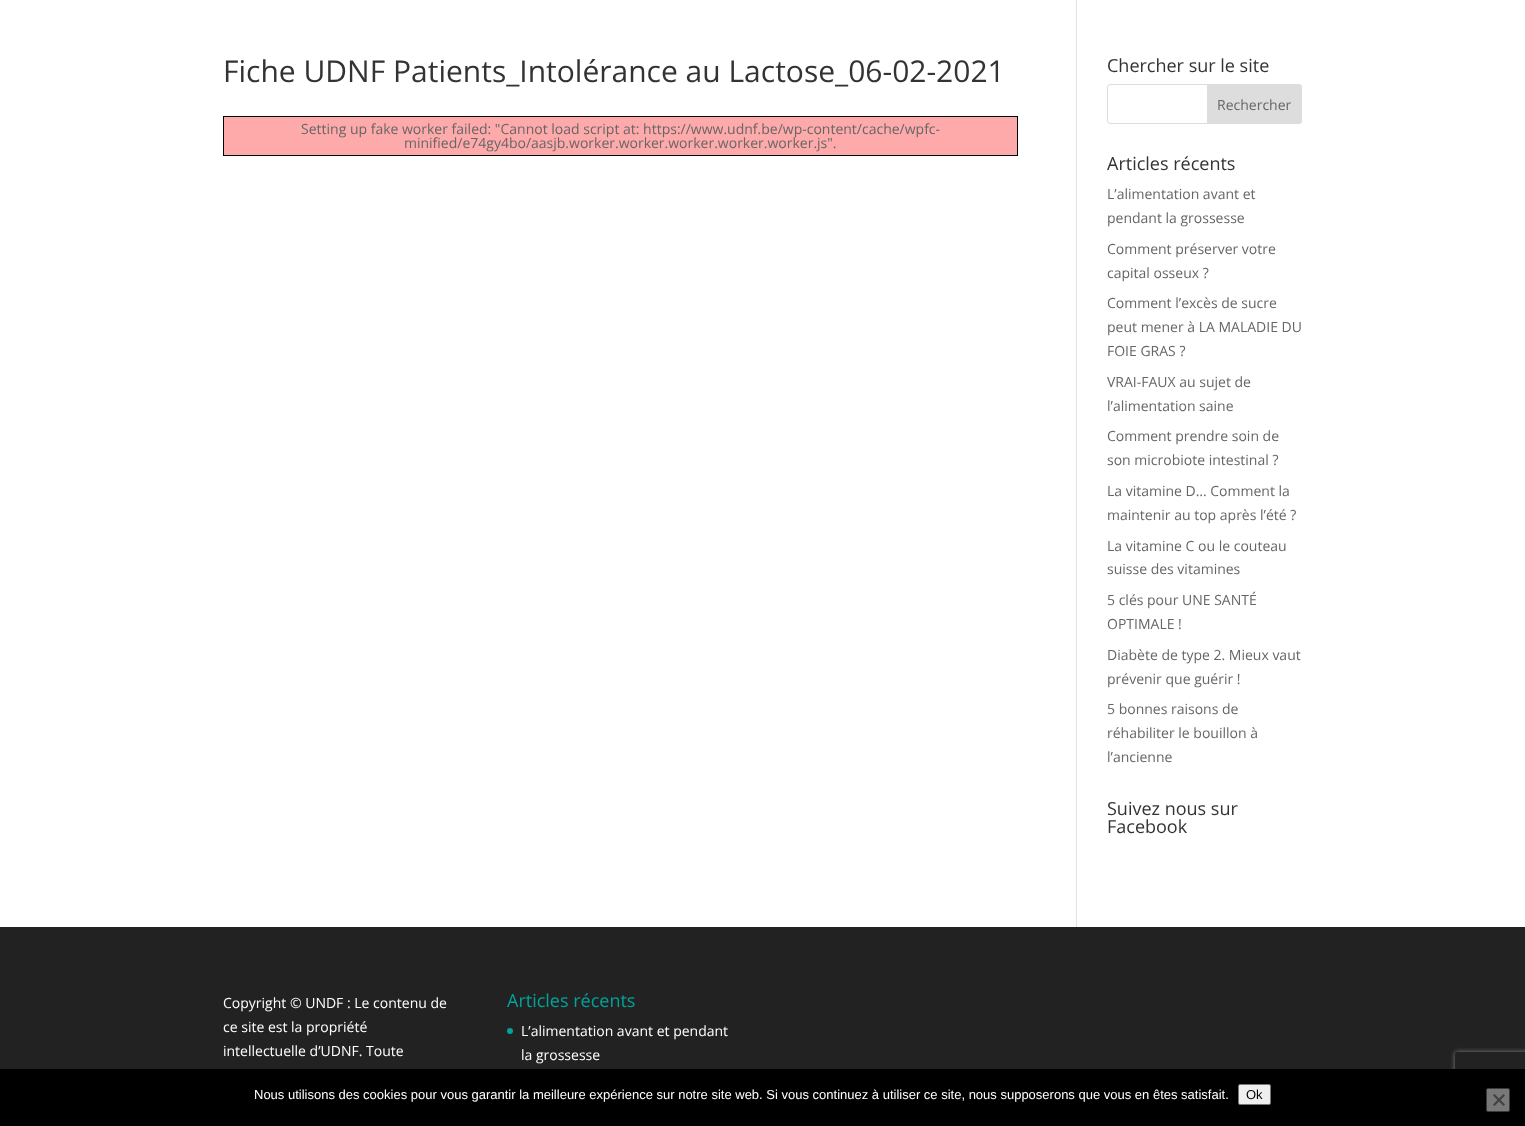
(async () => {
    const canvas = document.querySelector("canvas");
    canvas.width = 1525;
    canvas.height = 1126;
    const context = canvas.getContext("2d");
    context.miterLimit = 4;
    context.fontKerning = "normal";
    function write(s, x, y, font, color) {
        context.font = font;
        context.fillStyle = color;
        context.fillText(s, x, y);
    }
    function block(x, y, w, h, color) {
        context.fillStyle = color;
        context.fillRect(x, y, w, h);
    }

    block(0, 0, 1525, 1126, "rgb(255, 255, 255)");
    block(1076, 0, 1, 927, "rgb(226, 226, 226)");
    write("Fiche UDNF Patients_Intolérance au Lactose_06-02-2021", 223, 82, "30px Open Sans", "rgb(51, 51, 51)");
    context.strokeStyle = "rgb(0, 0, 0)";
    context.strokeRect(223.5, 116.5, 794, 39);
    block(224, 117, 793, 38, "rgb(255, 170, 170)");
    write("Setting up fake worker failed: \"Cannot load script at: https://www.udnf.be/wp-content/cache/wpfc-", 301, 134, "14px Open Sans", "rgb(102, 102, 102)");
    write("minified/e74gy4bo/aasjb.worker.worker.worker.worker.worker.js\".", 404, 148, "14px Open Sans", "rgb(102, 102, 102)");
    write("Chercher sur le site", 1107, 72, "18px Open Sans", "rgb(51, 51, 51)");
    context.beginPath();
    context.roundRect(1107.5, 84.5, 194, 39, 2.5);
    context.strokeStyle = "rgb(221, 221, 221)";
    context.stroke();
    context.fillStyle = "rgb(221, 221, 221)";
    context.beginPath();
    context.roundRect(1207.5, 84.5, 94, 39, [0, 2.5, 2.5, 0]);
    context.fill();
    context.stroke();
    write("Rechercher", 1217, 110, "14px Open Sans", "rgb(102, 102, 102)");
    write("Articles récents", 1107, 170, "18px Open Sans", "rgb(51, 51, 51)");
    write("L’alimentation avant et", 1107, 199, "14px Open Sans", "rgb(102, 102, 102)");
    write("pendant la grossesse", 1107, 223, "14px Open Sans", "rgb(102, 102, 102)");
    write("Comment préserver votre", 1107, 254, "14px Open Sans", "rgb(102, 102, 102)");
    write("capital osseux ?", 1107, 278, "14px Open Sans", "rgb(102, 102, 102)");
    write("Comment l’excès de sucre", 1107, 308, "14px Open Sans", "rgb(102, 102, 102)");
    write("peut mener à LA MALADIE DU", 1107, 332, "14px Open Sans", "rgb(102, 102, 102)");
    write("FOIE GRAS ?", 1107, 356, "14px Open Sans", "rgb(102, 102, 102)");
    write("VRAI-FAUX au sujet de", 1107, 387, "14px Open Sans", "rgb(102, 102, 102)");
    write("l’alimentation saine", 1107, 411, "14px Open Sans", "rgb(102, 102, 102)");
    write("Comment prendre soin de", 1107, 441, "14px Open Sans", "rgb(102, 102, 102)");
    write("son microbiote intestinal ?", 1107, 465, "14px Open Sans", "rgb(102, 102, 102)");
    write("La vitamine D… Comment la", 1107, 496, "14px Open Sans", "rgb(102, 102, 102)");
    write("maintenir au top après l’été ?", 1107, 520, "14px Open Sans", "rgb(102, 102, 102)");
    write("La vitamine C ou le couteau", 1107, 551, "14px Open Sans", "rgb(102, 102, 102)");
    write("suisse des vitamines", 1107, 574, "14px Open Sans", "rgb(102, 102, 102)");
    write("5 clés pour UNE SANTÉ", 1107, 605, "14px Open Sans", "rgb(102, 102, 102)");
    write("OPTIMALE !", 1107, 629, "14px Open Sans", "rgb(102, 102, 102)");
    write("Diabète de type 2. Mieux vaut", 1107, 660, "14px Open Sans", "rgb(102, 102, 102)");
    write("prévenir que guérir !", 1107, 684, "14px Open Sans", "rgb(102, 102, 102)");
    write("5 bonnes raisons de", 1107, 714, "14px Open Sans", "rgb(102, 102, 102)");
    write("réhabiliter le bouillon à", 1107, 738, "14px Open Sans", "rgb(102, 102, 102)");
    write("l’ancienne", 1107, 762, "14px Open Sans", "rgb(102, 102, 102)");
    write("Suivez nous sur", 1107, 815, "18px Open Sans", "rgb(51, 51, 51)");
    write("Facebook", 1107, 833, "18px Open Sans", "rgb(51, 51, 51)");
    block(0, 927, 1525, 142, "rgb(34, 34, 34)");
    write("Copyright © UNDF : Le contenu de", 223, 1008, "14px Open Sans", "rgb(255, 255, 255)");
    write("ce site est la propriété", 223, 1032, "14px Open Sans", "rgb(255, 255, 255)");
    write("intellectuelle d’UDNF. Toute", 223, 1056, "14px Open Sans", "rgb(255, 255, 255)");
    write("Articles récents", 507, 1007, "18px Open Sans", "rgb(0, 164, 155)");
    context.beginPath();
    context.arc(510, 1031, 3, 0, Math.PI * 2);
    context.fill();
    write("L’alimentation avant et pendant", 521, 1036, "14px Open Sans", "rgb(255, 255, 255)");
    write("la grossesse", 521, 1060, "14px Open Sans", "rgb(255, 255, 255)");
    context.save();
    context.beginPath();
    context.moveTo(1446, 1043);
    context.lineTo(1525, 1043);
    context.lineTo(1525, 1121);
    context.lineTo(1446, 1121);
    context.closePath();
    context.moveTo(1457, 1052);
    context.lineTo(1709, 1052);
    context.bezierCurveTo(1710, 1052, 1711, 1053, 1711, 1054);
    context.lineTo(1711, 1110);
    context.bezierCurveTo(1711, 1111, 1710, 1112, 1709, 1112);
    context.lineTo(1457, 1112);
    context.bezierCurveTo(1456, 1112, 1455, 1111, 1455, 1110);
    context.lineTo(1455, 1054);
    context.bezierCurveTo(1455, 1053, 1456, 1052, 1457, 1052);
    context.closePath();
    context.clip("evenodd");
    context.fillStyle = "rgb(128, 128, 128)";
    context.filter = "blur(2.5px)";
    context.beginPath();
    context.roundRect(1455, 1052, 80, 60, 2);
    context.fill();
    context.filter = "none";
    context.restore();
    block(0, 1069, 1525, 57, "rgb(0, 0, 0)");
    write("Nous utilisons des cookies pour vous garantir la meilleure expérience sur notre site web. Si vous continuez à utiliser ce site, nous supposerons que vous en êtes satisfait.", 254, 1099, "13px Liberation Sans", "rgb(255, 255, 255)");
    context.fillStyle = "rgb(239, 239, 239)";
    context.beginPath();
    context.roundRect(1238.5, 1084.5, 32, 20, 1.5);
    context.fill();
    context.strokeStyle = "rgb(118, 118, 118)";
    context.stroke();
    write("Ok", 1246, 1099, "13px Liberation Sans", "rgb(0, 0, 0)");
    context.fillStyle = "rgb(120, 120, 120)";
    context.beginPath();
    context.roundRect(1486.5, 1088.5, 23, 23, 1.5);
    context.fill();
    context.strokeStyle = "rgb(59, 59, 59)";
    context.stroke();
    context.fillStyle = "rgb(64, 64, 64)";
    context.beginPath();
    context.moveTo(1503.5, 1094);
    context.lineTo(1505, 1095.5);
    context.lineTo(1494.5, 1106);
    context.lineTo(1493, 1104.5);
    context.closePath();
    context.fill();
    context.beginPath();
    context.moveTo(1493, 1095.5);
    context.lineTo(1494.5, 1094);
    context.lineTo(1505, 1104.5);
    context.lineTo(1503.5, 1106);
    context.closePath();
    context.fill();
})();
